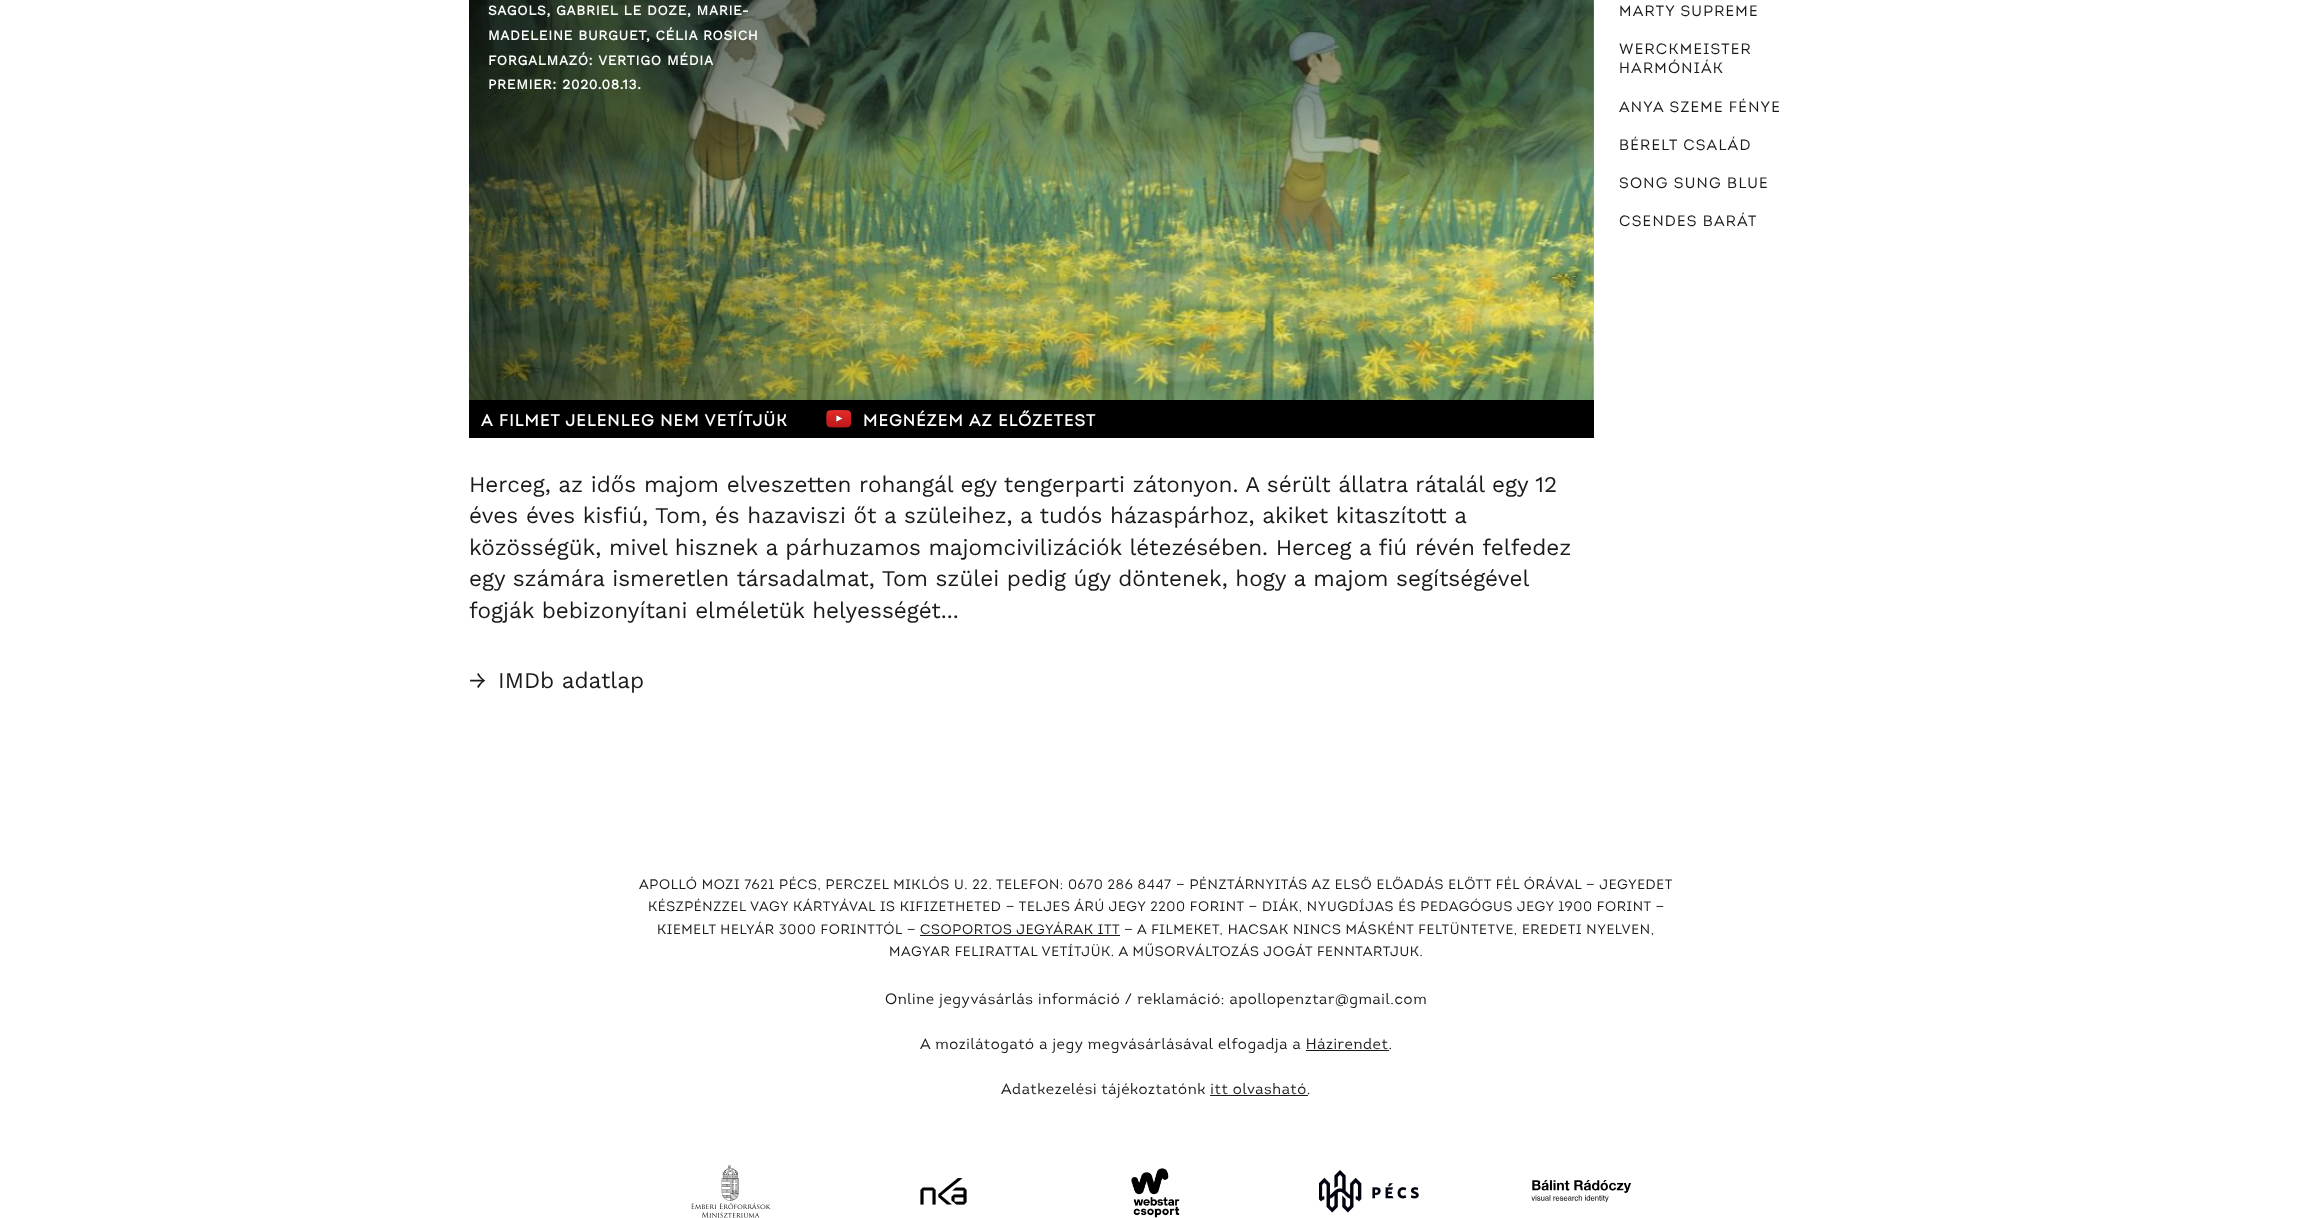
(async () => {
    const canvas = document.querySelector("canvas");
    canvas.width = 2312;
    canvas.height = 1218;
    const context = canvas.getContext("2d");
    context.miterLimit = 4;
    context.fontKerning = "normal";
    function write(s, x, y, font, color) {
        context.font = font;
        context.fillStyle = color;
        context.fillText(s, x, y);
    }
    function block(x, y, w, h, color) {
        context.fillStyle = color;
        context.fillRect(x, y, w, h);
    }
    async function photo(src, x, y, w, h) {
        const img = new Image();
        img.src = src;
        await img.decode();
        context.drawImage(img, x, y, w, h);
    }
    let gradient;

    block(0, 0, 2312, 1218, "rgb(255, 255, 255)");
    await photo("media/1.png", 1593, 0, 1, 400);
    await photo("media/2.png", 469, 0, 1125, 400);
    gradient = context.createLinearGradient(469, 84, 1594, 84);
    gradient.addColorStop(0, "rgba(0, 0, 0, 0.6)");
    gradient.addColorStop(0.4, "rgba(0, 0, 0, 0.1)");
    gradient.addColorStop(1, "rgba(0, 0, 0, 0.02)");
    context.fillStyle = gradient;
    context.fillRect(469, 0, 1112, 400);
    context.letterSpacing = "0.62px";
    write("SAGOLS, GABRIEL LE DOZE, MARIE-", 488, 15, "bold 13.75px Work Sans", "rgb(255, 255, 255)");
    write("MADELEINE BURGUET, CÉLIA ROSICH", 488, 40, "bold 13.75px Work Sans", "rgb(255, 255, 255)");
    write("FORGALMAZÓ: VERTIGO MÉDIA", 488, 65, "bold 13.75px Work Sans", "rgb(255, 255, 255)");
    write("PREMIER: 2020.08.13.", 488, 89, "bold 13.75px Work Sans", "rgb(255, 255, 255)");
    block(469, 400, 1125, 38, "rgb(0, 0, 0)");
    context.letterSpacing = "1.25px";
    write("A FILMET JELENLEG NEM VETÍTJÜK", 481, 426, "bold 16.25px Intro", "rgb(255, 255, 255)");
    await photo("media/3.png", 826, 410, 25, 18);
    write("MEGNÉZEM AZ ELŐZETEST", 863, 426, "bold 16.25px Intro", "rgb(255, 255, 255)");
    context.letterSpacing = "0px";
    write("Herceg, az idős majom elveszetten rohangál egy tengerparti zátonyon. A sérült állatra rátalál egy 12", 469, 492, "22.5px Work Sans", "rgb(26, 26, 26)");
    write("éves éves kisfiú, Tom, és hazaviszi őt a szüleihez, a tudós házaspárhoz, akiket kitaszított a", 469, 523, "22.5px Work Sans", "rgb(26, 26, 26)");
    write("közösségük, mivel hisznek a párhuzamos majomcivilizációk létezésében. Herceg a fiú révén felfedez", 469, 555, "22.5px Work Sans", "rgb(26, 26, 26)");
    write("egy számára ismeretlen társadalmat, Tom szülei pedig úgy döntenek, hogy a majom segítségével", 469, 586, "22.5px Work Sans", "rgb(26, 26, 26)");
    write("fogják bebizonyítani elméletük helyességét...", 469, 618, "22.5px Work Sans", "rgb(26, 26, 26)");
    write("→", 469, 688, "22.5px Work Sans", "rgb(26, 26, 26)");
    write("IMDb adatlap", 498, 688, "22.5px Work Sans", "rgb(26, 26, 26)");
    context.letterSpacing = "1.25px";
    write("MARTY SUPREME", 1619, 16, "15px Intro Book", "rgb(26, 26, 26)");
    write("WERCKMEISTER", 1619, 54, "15px Intro Book", "rgb(26, 26, 26)");
    write("HARMÓNIÁK", 1619, 73, "15px Intro Book", "rgb(26, 26, 26)");
    write("ANYA SZEME FÉNYE", 1619, 112, "15px Intro Book", "rgb(26, 26, 26)");
    write("BÉRELT CSALÁD", 1619, 150, "15px Intro Book", "rgb(26, 26, 26)");
    write("SONG SUNG BLUE", 1619, 188, "15px Intro Book", "rgb(26, 26, 26)");
    write("CSENDES BARÁT", 1619, 226, "15px Intro Book", "rgb(26, 26, 26)");
    context.letterSpacing = "0.62px";
    write("APOLLÓ MOZI 7621 PÉCS, PERCZEL MIKLÓS U. 22. TELEFON: 0670 286 8447 — PÉNZTÁRNYITÁS AZ ELSŐ ELŐADÁS ELŐTT FÉL ÓRÁVAL — JEGYEDET", 639, 889, "13.75px Intro Book", "rgb(26, 26, 26)");
    write("KÉSZPÉNZZEL VAGY KÁRTYÁVAL IS KIFIZETHETED — TELJES ÁRÚ JEGY 2200 FORINT — DIÁK, NYUGDÍJAS ÉS PEDAGÓGUS JEGY 1900 FORINT —", 648, 911, "13.75px Intro Book", "rgb(26, 26, 26)");
    write("KIEMELT HELYÁR 3000 FORINTTÓL —", 657, 934, "13.75px Intro Book", "rgb(26, 26, 26)");
    write("CSOPORTOS JEGYÁRAK ITT", 920, 934, "13.75px Intro Book", "rgb(26, 26, 26)");
    block(920, 935, 200, 1, "rgb(26, 26, 26)");
    write("— A FILMEKET, HACSAK NINCS MÁSKÉNT FELTÜNTETVE, EREDETI NYELVEN,", 1124, 934, "13.75px Intro Book", "rgb(26, 26, 26)");
    write("MAGYAR FELIRATTAL VETÍTJÜK. A MŰSORVÁLTOZÁS JOGÁT FENNTARTJUK.", 889, 956, "13.75px Intro Book", "rgb(26, 26, 26)");
    write("Online jegyvásárlás információ / reklamáció: apollopenztar@gmail.com", 885, 1004, "15px Intro Book", "rgb(26, 26, 26)");
    write("A mozilátogató a jegy megvásárlásával elfogadja a Házirendet.", 920, 1049, "15px Intro Book", "rgb(26, 26, 26)");
    block(1306, 1050, 83, 1, "rgb(26, 26, 26)");
    write("Adatkezelési tájékoztatónk itt olvasható.", 1001, 1094, "15px Intro Book", "rgb(26, 26, 26)");
    block(1210, 1095, 98, 1, "rgb(26, 26, 26)");
    await photo("media/4.png", 691, 1165, 80, 53);
    await photo("media/5.png", 920, 1178, 47, 27);
    await photo("media/6.png", 1131, 1168, 49, 50);
    await photo("media/7.png", 1319, 1170, 100, 43);
    await photo("media/8.png", 1531, 1180, 100, 23);
})();
